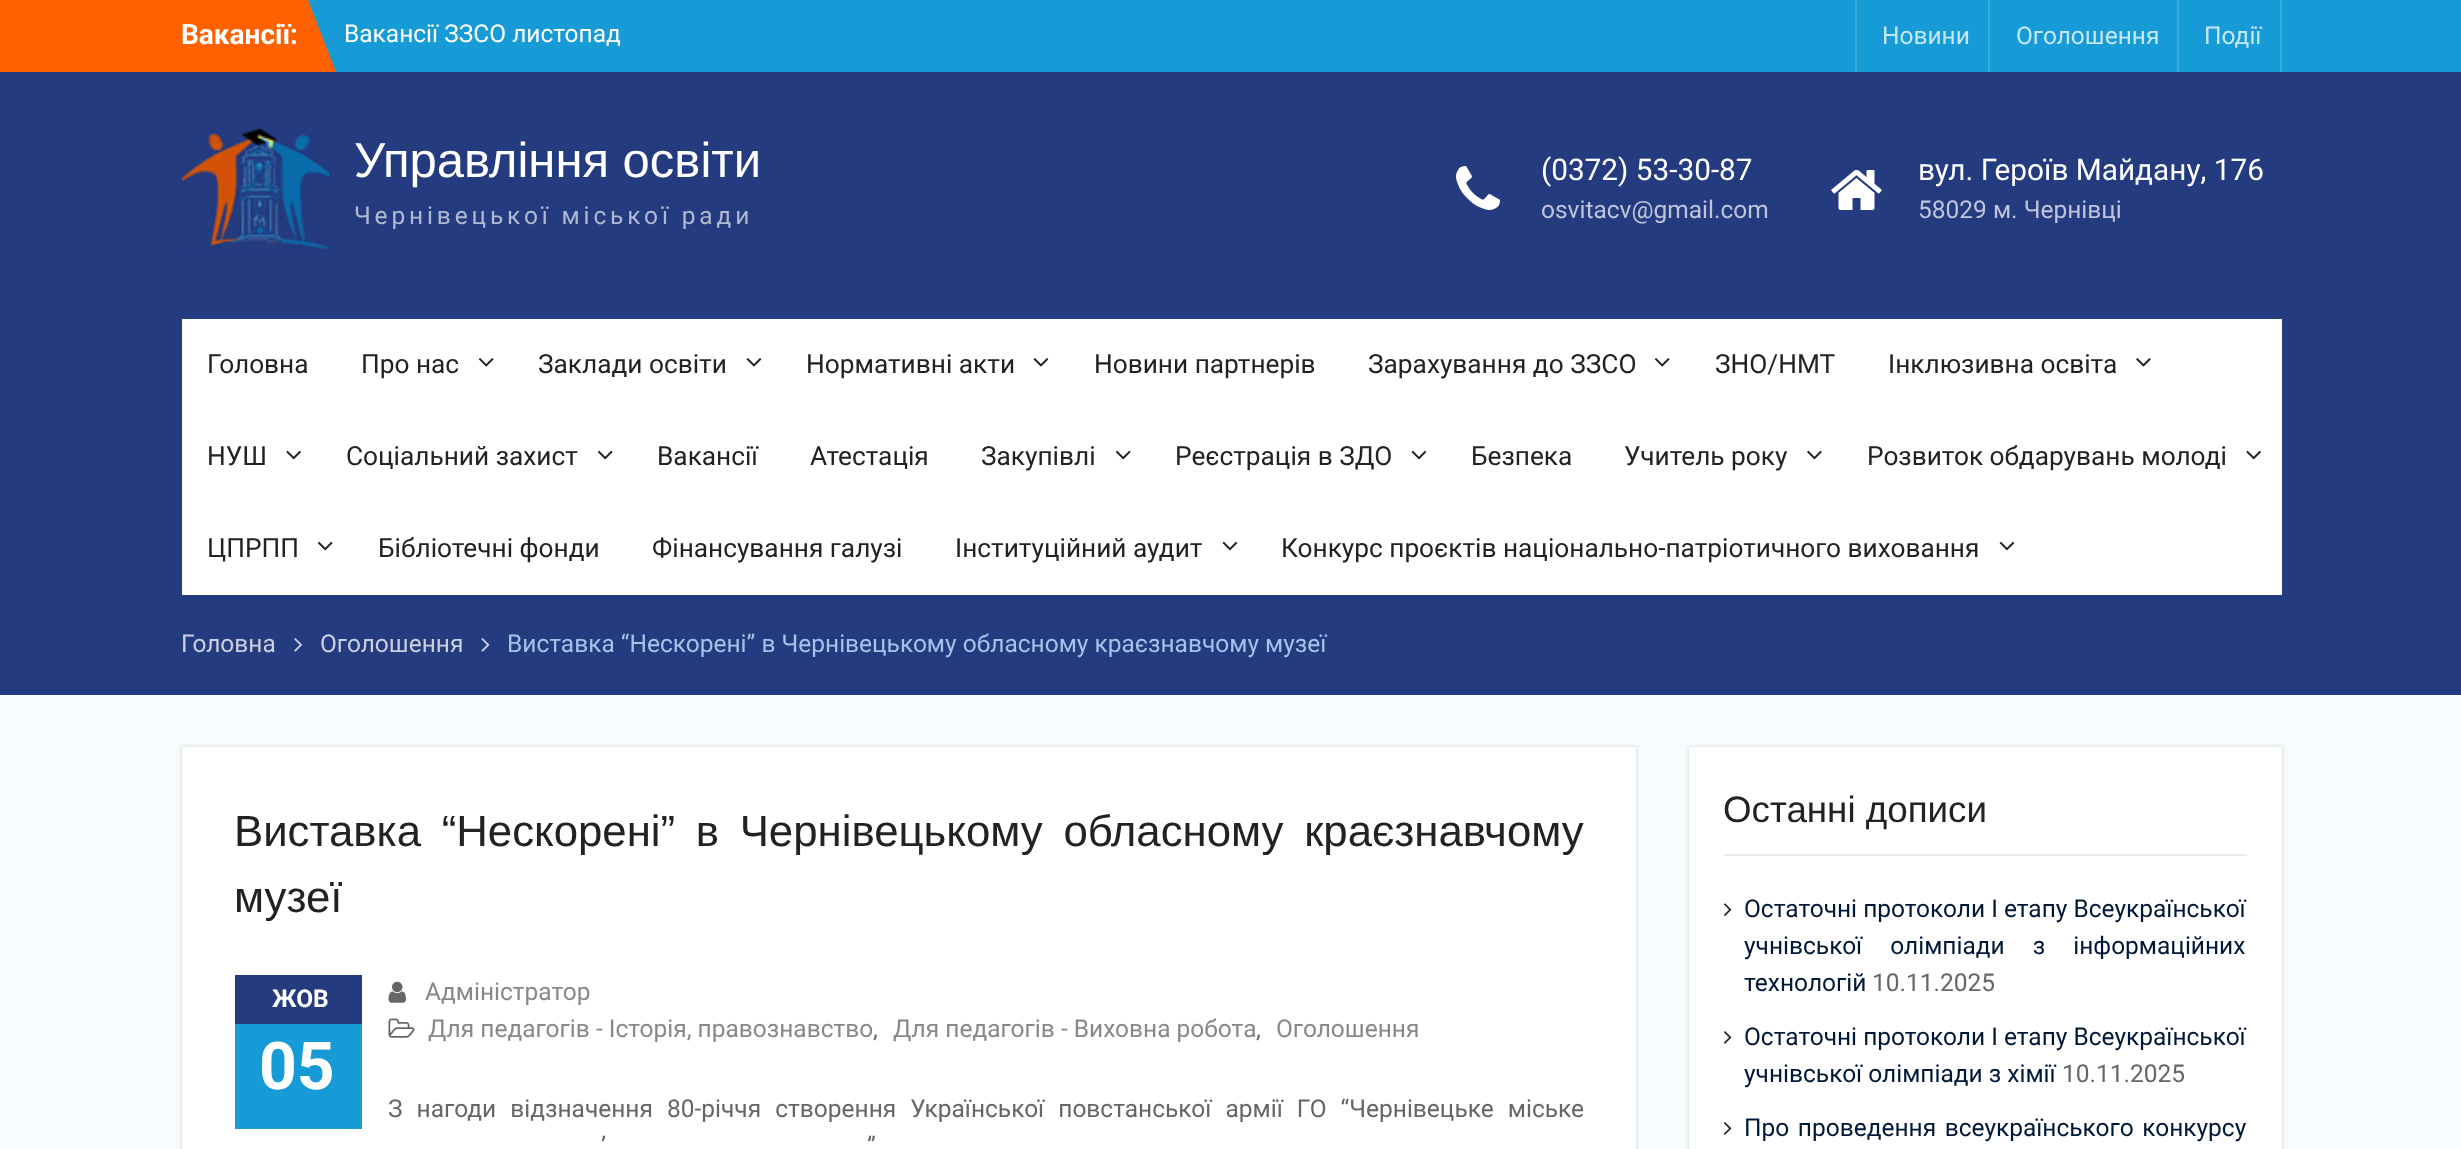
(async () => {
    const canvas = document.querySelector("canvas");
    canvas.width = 2461;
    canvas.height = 1149;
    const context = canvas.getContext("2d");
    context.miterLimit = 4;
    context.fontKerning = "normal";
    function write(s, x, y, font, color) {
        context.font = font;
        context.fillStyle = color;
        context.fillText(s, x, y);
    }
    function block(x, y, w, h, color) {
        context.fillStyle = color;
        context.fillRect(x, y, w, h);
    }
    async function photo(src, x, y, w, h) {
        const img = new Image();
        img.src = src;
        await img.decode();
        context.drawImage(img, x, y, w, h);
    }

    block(0, 0, 2461, 1149, "rgb(247, 252, 254)");
    block(308, 0, 2153, 72, "rgb(23, 155, 215)");
    block(0, 0, 308, 72, "rgb(255, 96, 0)");
    write("Вакансії:", 181, 44, "bold 28px Roboto", "rgb(255, 255, 255)");
    context.fillStyle = "rgb(255, 96, 0)";
    context.beginPath();
    context.moveTo(308, 72);
    context.lineTo(308, 0);
    context.lineTo(336, 72);
    context.closePath();
    context.fill();
    write("Вакансії ЗЗСО листопад", 344, 42, "24.5px Roboto", "rgb(255, 255, 255)");
    block(1988, 0, 2, 72, "rgb(58, 170, 221)");
    block(1855, 0, 2, 72, "rgb(58, 170, 221)");
    write("Новини", 1882, 44, "24.5px Roboto", "rgb(197, 230, 245)");
    block(2177, 0, 2, 72, "rgb(58, 170, 221)");
    write("Оголошення", 2016, 44, "24.5px Roboto", "rgb(197, 230, 245)");
    block(2280, 0, 2, 72, "rgb(58, 170, 221)");
    write("Події", 2204, 44, "24.5px Roboto", "rgb(197, 230, 245)");
    block(0, 72, 2461, 623, "rgb(37, 59, 128)");
    await photo("media/1.png", 182, 126, 147, 123);
    write("Управління освіти", 354, 177, "49px Liberation Sans", "rgb(255, 255, 255)");
    context.letterSpacing = "3.85px";
    write("Чернівецької міської ради", 354, 224, "24.5px Roboto", "rgb(177, 184, 209)");
    await photo("media/2.png", 1456, 166, 44, 44);
    context.letterSpacing = "0px";
    write("(0372) 53-30-87", 1541, 180, "29.75px Roboto", "rgb(255, 255, 255)");
    write("osvitacv@gmail.com", 1541, 218, "24.5px Roboto", "rgb(190, 196, 217)");
    await photo("media/3.png", 1831, 169, 51, 41);
    write("вул. Героїв Майдану, 176", 1918, 180, "29.75px Roboto", "rgb(255, 255, 255)");
    write("58029 м. Чернівці", 1918, 218, "24.5px Roboto", "rgb(190, 196, 217)");
    block(182, 319, 2100, 276, "rgb(255, 255, 255)");
    write("Головна", 207, 373, "26.25px Roboto", "rgb(34, 34, 34)");
    write("Про нас", 361, 373, "26.25px Roboto", "rgb(34, 34, 34)");
    await photo("media/4.png", 478, 358, 16, 9);
    write("Заклади освіти", 538, 373, "26.25px Roboto", "rgb(34, 34, 34)");
    await photo("media/5.png", 746, 358, 16, 9);
    write("Нормативні акти", 806, 373, "26.25px Roboto", "rgb(34, 34, 34)");
    await photo("media/5.png", 1033, 358, 16, 9);
    write("Новини партнерів", 1094, 373, "26.25px Roboto", "rgb(34, 34, 34)");
    write("Зарахування до ЗЗСО", 1368, 373, "26.25px Roboto", "rgb(34, 34, 34)");
    await photo("media/4.png", 1654, 358, 16, 9);
    write("ЗНО/НМТ", 1715, 373, "26.25px Roboto", "rgb(34, 34, 34)");
    write("Інклюзивна освіта", 1888, 373, "26.25px Roboto", "rgb(34, 34, 34)");
    await photo("media/6.png", 2136, 358, 15, 9);
    write("НУШ", 207, 465, "26.25px Roboto", "rgb(34, 34, 34)");
    await photo("media/7.png", 286, 450, 15, 10);
    write("Соціальний захист", 346, 465, "26.25px Roboto", "rgb(34, 34, 34)");
    await photo("media/8.png", 598, 450, 15, 10);
    write("Вакансії", 657, 465, "26.25px Roboto", "rgb(34, 34, 34)");
    write("Атестація", 810, 465, "26.25px Roboto", "rgb(34, 34, 34)");
    write("Закупівлі", 981, 465, "26.25px Roboto", "rgb(34, 34, 34)");
    await photo("media/8.png", 1116, 450, 15, 10);
    write("Реєстрація в ЗДО", 1175, 465, "26.25px Roboto", "rgb(34, 34, 34)");
    await photo("media/9.png", 1411, 450, 16, 10);
    write("Безпека", 1471, 465, "26.25px Roboto", "rgb(34, 34, 34)");
    write("Учитель року", 1624, 465, "26.25px Roboto", "rgb(34, 34, 34)");
    await photo("media/10.png", 1807, 450, 15, 10);
    write("Розвиток обдарувань молоді", 1867, 465, "26.25px Roboto", "rgb(34, 34, 34)");
    await photo("media/7.png", 2246, 450, 15, 10);
    write("ЦПРПП", 207, 557, "26.25px Roboto", "rgb(34, 34, 34)");
    await photo("media/8.png", 318, 541, 15, 10);
    write("Бібліотечні фонди", 378, 557, "26.25px Roboto", "rgb(34, 34, 34)");
    write("Фінансування галузі", 652, 557, "26.25px Roboto", "rgb(34, 34, 34)");
    write("Інституційний аудит", 955, 557, "26.25px Roboto", "rgb(34, 34, 34)");
    await photo("media/9.png", 1222, 541, 16, 10);
    write("Конкурс проєктів національно-патріотичного виховання", 1281, 557, "26.25px Roboto", "rgb(34, 34, 34)");
    await photo("media/9.png", 1999, 541, 16, 10);
    write("Головна", 181, 652, "24.5px Roboto", "rgb(203, 208, 225)");
    await photo("media/11.png", 294, 638, 9, 14);
    write("Оголошення", 320, 652, "24.5px Roboto", "rgb(203, 208, 225)");
    await photo("media/12.png", 481, 638, 9, 14);
    write("Виставка “Нескорені” в Чернівецькому обласному краєзнавчому музеї", 507, 652, "24.5px Roboto", "rgb(160, 197, 232)");
    context.fillStyle = "rgb(207, 207, 207)";
    context.filter = "blur(2px)";
    context.beginPath();
    context.rect(182, 747, 1454, 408);
    context.fill();
    context.filter = "none";
    block(182, 747, 1454, 402, "rgb(255, 255, 255)");
    context.wordSpacing = "8.5px";
    write("Виставка “Нескорені” в Чернівецькому обласному краєзнавчому", 234, 846, "43.75px Liberation Sans", "rgb(34, 34, 34)");
    context.wordSpacing = "0px";
    write("музеї", 234, 912, "43.75px Liberation Sans", "rgb(34, 34, 34)");
    block(235, 975, 127, 49, "rgb(37, 59, 128)");
    write("ЖОВ", 272, 1007, "bold 24.5px Roboto", "rgb(255, 255, 255)");
    block(235, 1024, 127, 105, "rgb(23, 155, 215)");
    write("05", 259, 1089, "bold 66px Roboto", "rgb(255, 255, 255)");
    await photo("media/13.png", 388, 981, 18, 22);
    write("Адміністратор", 425, 1000, "24.5px Roboto", "rgb(136, 136, 136)");
    await photo("media/14.png", 388, 1018, 27, 20);
    write("Для педагогів - Історія, правознавство", 428, 1037, "24.5px Roboto", "rgb(136, 136, 136)");
    write(",", 873, 1037, "24.5px Roboto", "rgb(102, 102, 102)");
    write("Для педагогів - Виховна робота", 893, 1037, "24.5px Roboto", "rgb(136, 136, 136)");
    write(",", 1256, 1037, "24.5px Roboto", "rgb(102, 102, 102)");
    write("Оголошення", 1276, 1037, "24.5px Roboto", "rgb(136, 136, 136)");
    context.wordSpacing = "8px";
    write("З нагоди відзначення 80-річчя створення Української повстанської армії ГО “Чернівецьке міське", 388, 1117, "24.5px Roboto", "rgb(102, 102, 102)");
    context.wordSpacing = "1px";
    write("’", 601, 1154, "24.5px Roboto", "rgb(102, 102, 102)");
    write("”", 867, 1154, "24.5px Roboto", "rgb(102, 102, 102)");
    context.fillStyle = "rgb(207, 207, 207)";
    context.filter = "blur(2px)";
    context.beginPath();
    context.rect(1689, 747, 593, 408);
    context.fill();
    context.filter = "none";
    block(1689, 747, 593, 402, "rgb(255, 255, 255)");
    block(1724, 854, 523, 2, "rgb(231, 236, 239)");
    context.wordSpacing = "0px";
    write("Останні дописи", 1723, 822, "36.75px Liberation Sans", "rgb(34, 34, 34)");
    await photo("media/15.png", 1724, 903, 8, 13);
    write("Остаточні протоколи І етапу Всеукраїнської", 1744, 917, "24.5px Roboto", "rgb(0, 24, 55)");
    context.wordSpacing = "22px";
    write("учнівської олімпіади з інформаційних", 1744, 954, "24.5px Roboto", "rgb(0, 24, 55)");
    context.wordSpacing = "0px";
    write("технологій", 1744, 991, "24.5px Roboto", "rgb(0, 24, 55)");
    write("10.11.2025", 1872, 991, "24.5px Roboto", "rgb(102, 102, 102)");
    await photo("media/16.png", 1724, 1031, 8, 13);
    write("Остаточні протоколи І етапу Всеукраїнської", 1744, 1045, "24.5px Roboto", "rgb(0, 24, 55)");
    write("учнівської олімпіади з хімії", 1744, 1082, "24.5px Roboto", "rgb(0, 24, 55)");
    write("10.11.2025", 2062, 1082, "24.5px Roboto", "rgb(102, 102, 102)");
    await photo("media/16.png", 1724, 1122, 8, 13);
    context.wordSpacing = "2.5px";
    write("Про проведення всеукраїнського конкурсу", 1744, 1136, "24.5px Roboto", "rgb(0, 24, 55)");
})();
